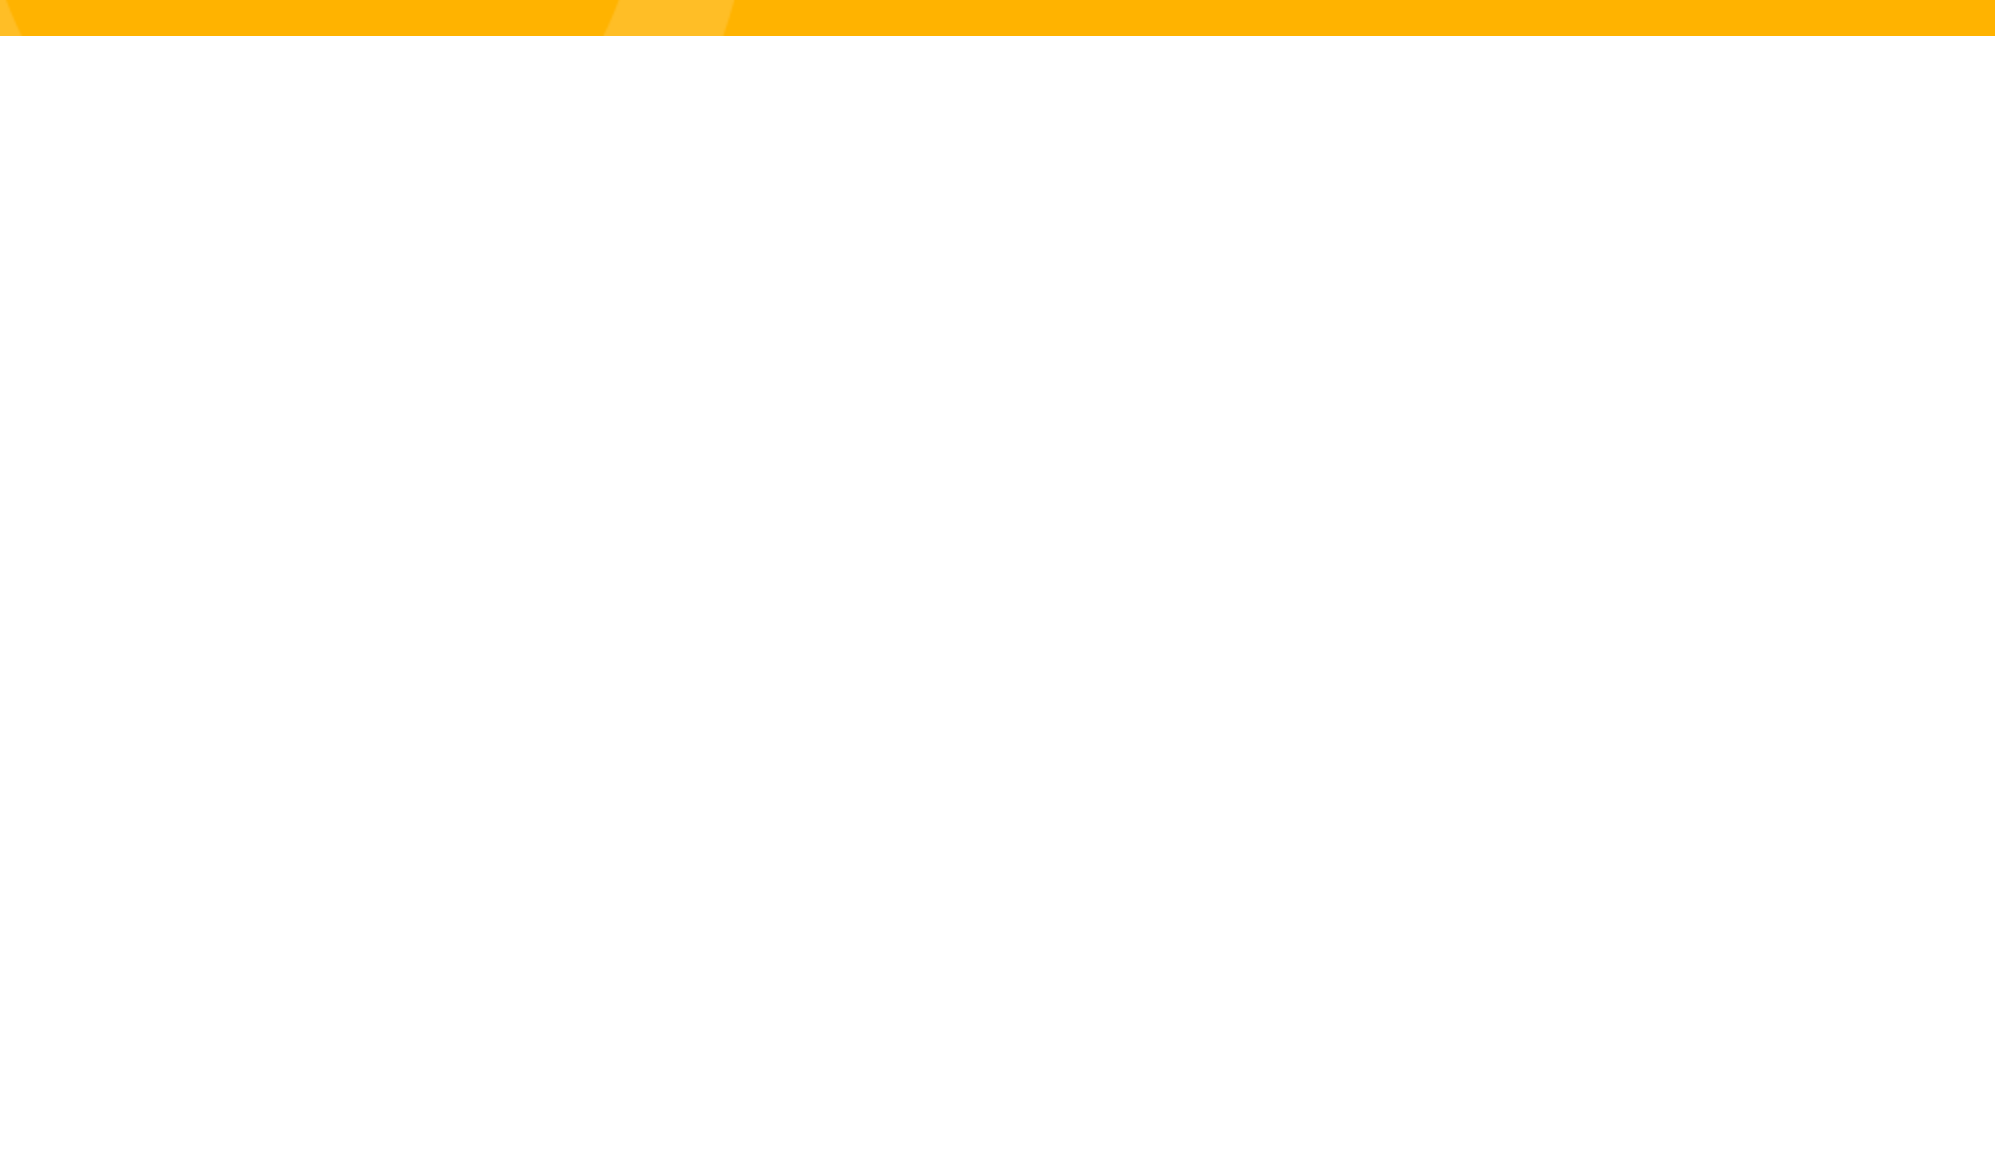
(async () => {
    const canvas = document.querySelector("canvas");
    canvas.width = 1995;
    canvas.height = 1157;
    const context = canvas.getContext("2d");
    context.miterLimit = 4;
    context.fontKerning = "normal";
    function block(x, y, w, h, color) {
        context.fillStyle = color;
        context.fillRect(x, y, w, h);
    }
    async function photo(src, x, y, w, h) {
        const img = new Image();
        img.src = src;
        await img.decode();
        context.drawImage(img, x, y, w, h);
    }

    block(0, 0, 1995, 1157, "rgb(255, 255, 255)");
    block(0, 0, 1995, 36, "rgb(255, 179, 0)");
    await photo("media/1.png", 0, 0, 735, 36);
})();
